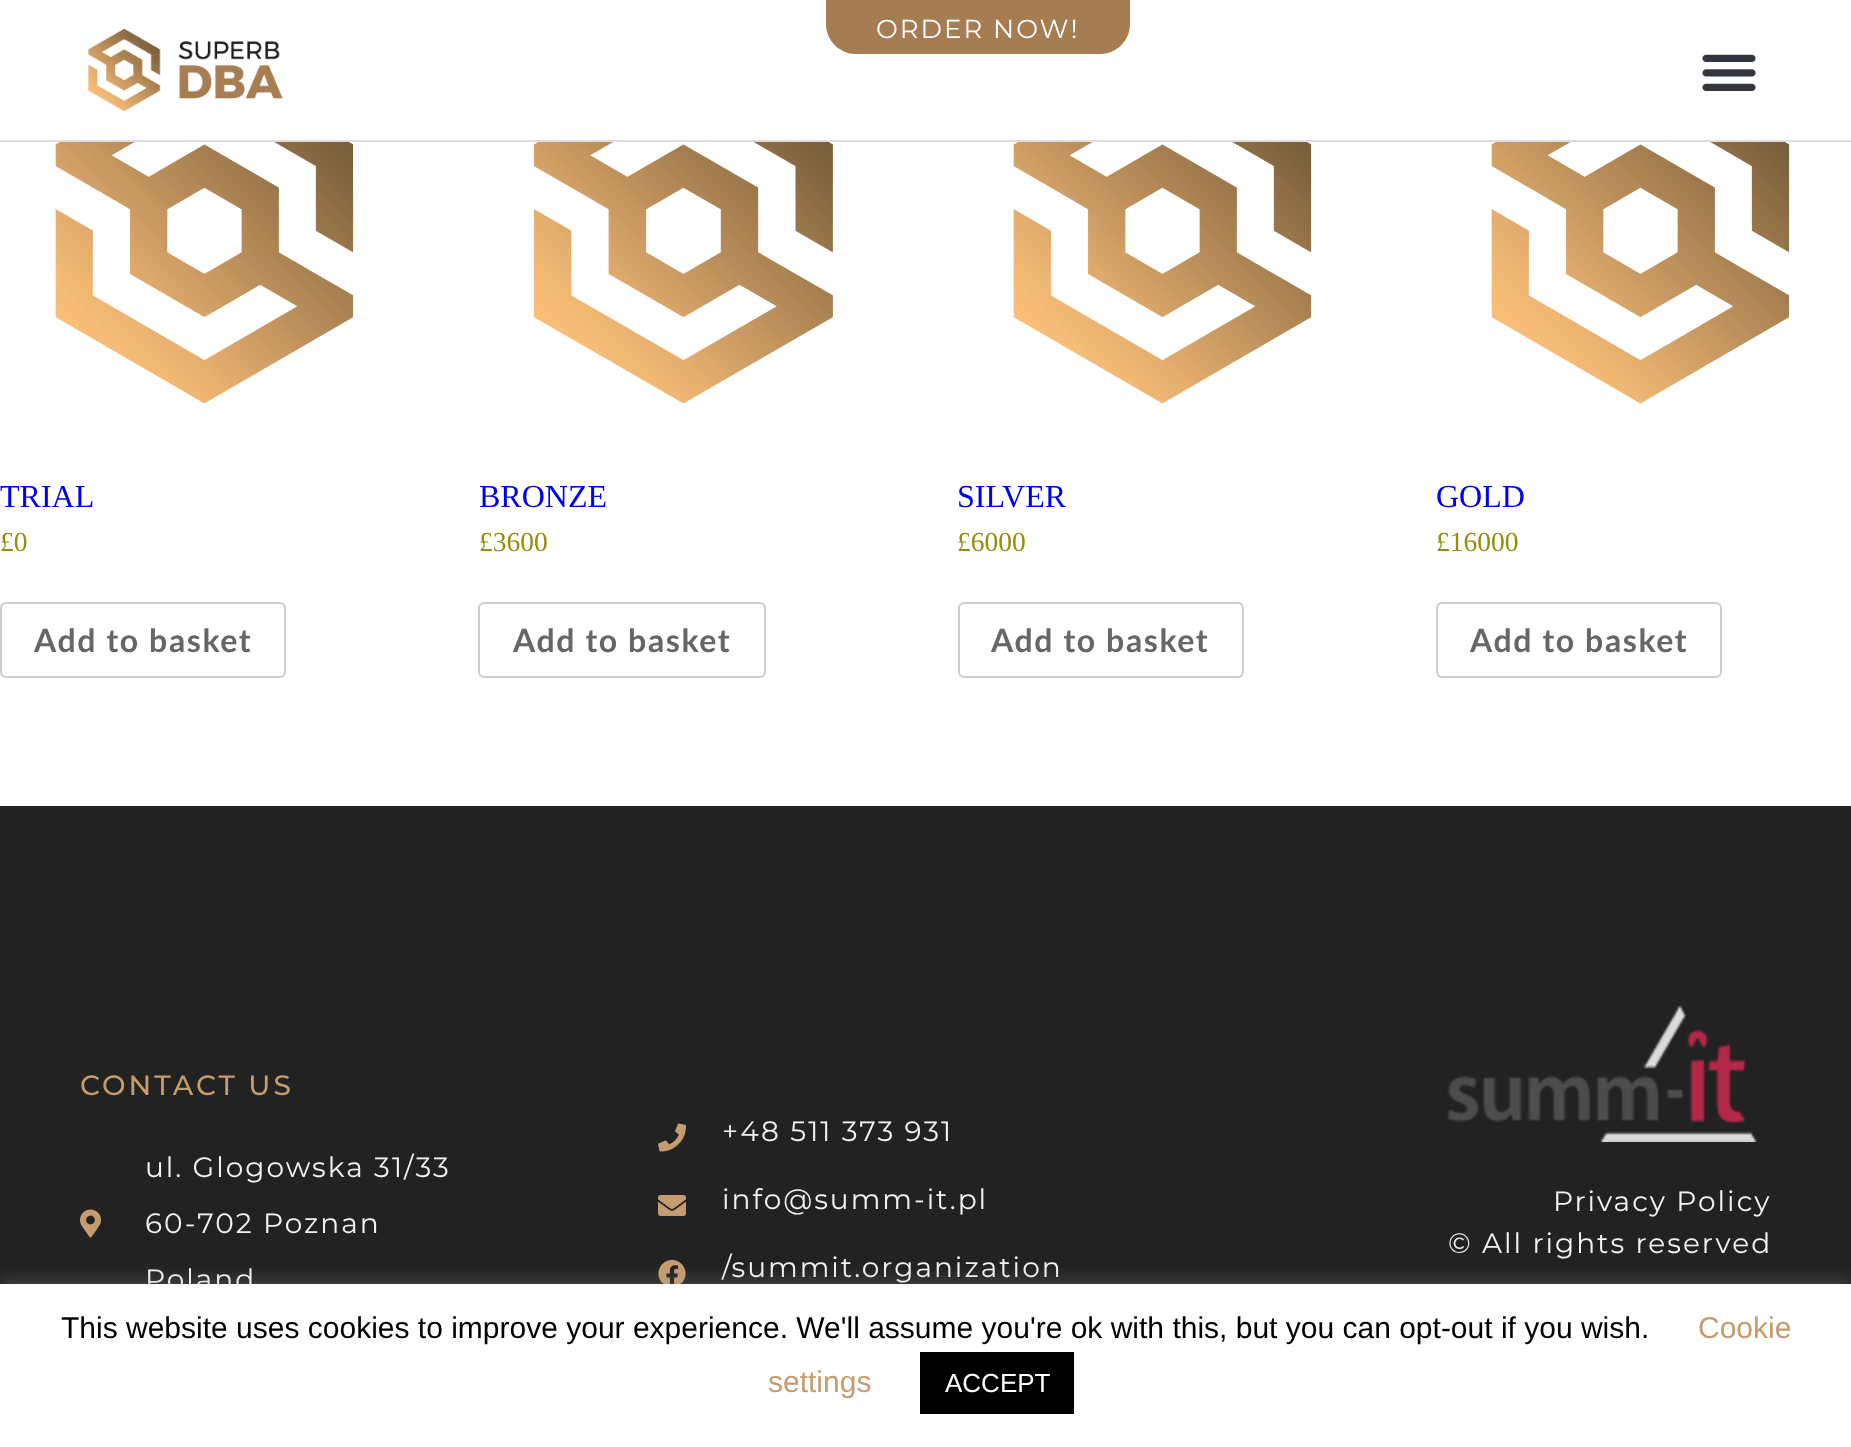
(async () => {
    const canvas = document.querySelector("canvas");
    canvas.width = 1851;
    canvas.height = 1447;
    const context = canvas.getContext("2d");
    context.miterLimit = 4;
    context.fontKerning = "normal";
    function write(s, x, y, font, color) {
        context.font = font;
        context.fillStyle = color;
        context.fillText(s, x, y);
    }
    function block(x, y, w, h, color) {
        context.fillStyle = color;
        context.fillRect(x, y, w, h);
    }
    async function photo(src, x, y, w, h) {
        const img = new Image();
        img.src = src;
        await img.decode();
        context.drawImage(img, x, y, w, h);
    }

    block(0, 0, 1851, 1447, "rgb(255, 255, 255)");
    block(0, 140, 1851, 2, "rgb(221, 221, 221)");
    await photo("media/1.png", 88, 28, 195, 83);
    context.fillStyle = "rgb(166, 124, 82)";
    context.beginPath();
    context.moveTo(826, -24);
    context.lineTo(1130, -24);
    context.lineTo(1130, 24);
    context.bezierCurveTo(1130, 40.5, 1116.5, 54, 1100, 54);
    context.lineTo(856, 54);
    context.bezierCurveTo(839.5, 54, 826, 40.5, 826, 24);
    context.closePath();
    context.fill();
    context.letterSpacing = "2px";
    write("ORDER NOW!", 876, 38, "26px Montserrat", "rgb(255, 255, 255)");
    await photo("media/2.png", 1702, 54, 54, 37);
    await photo("media/3.png", 55, 142, 299, 262);
    context.letterSpacing = "0px";
    write("TRIAL", 0, 507, "32px Liberation Serif", "rgb(0, 0, 238)");
    write("£0", 0, 551, "27.5px Liberation Serif", "rgb(149, 142, 9)");
    context.beginPath();
    context.roundRect(1, 603, 284, 74, 5);
    context.strokeStyle = "rgb(204, 204, 204)";
    context.lineWidth = 2;
    context.stroke();
    context.letterSpacing = "1.6px";
    write("Add to basket", 34, 652, "bold 32px Lato", "rgb(102, 102, 102)");
    await photo("media/4.png", 533, 142, 300, 262);
    context.letterSpacing = "0px";
    write("BRONZE", 479, 507, "32px Liberation Serif", "rgb(0, 0, 238)");
    write("£3600", 479, 551, "27.5px Liberation Serif", "rgb(149, 142, 9)");
    context.beginPath();
    context.roundRect(479, 603, 286, 74, 5);
    context.stroke();
    context.letterSpacing = "1.6px";
    write("Add to basket", 513, 652, "bold 32px Lato", "rgb(102, 102, 102)");
    await photo("media/5.png", 1013, 142, 299, 262);
    context.letterSpacing = "0px";
    write("SILVER", 957, 507, "32px Liberation Serif", "rgb(0, 0, 238)");
    write("£6000", 957, 551, "27.5px Liberation Serif", "rgb(149, 142, 9)");
    context.beginPath();
    context.roundRect(959, 603, 284, 74, 5);
    context.stroke();
    context.letterSpacing = "1.6px";
    write("Add to basket", 991, 652, "bold 32px Lato", "rgb(102, 102, 102)");
    await photo("media/6.png", 1491, 142, 299, 262);
    context.letterSpacing = "0px";
    write("GOLD", 1436, 507, "32px Liberation Serif", "rgb(0, 0, 238)");
    write("£16000", 1436, 551, "27.5px Liberation Serif", "rgb(149, 142, 9)");
    context.beginPath();
    context.roundRect(1437, 603, 284, 74, 5);
    context.stroke();
    context.letterSpacing = "1.6px";
    write("Add to basket", 1470, 652, "bold 32px Lato", "rgb(102, 102, 102)");
    block(0, 806, 1851, 478, "rgb(34, 34, 34)");
    context.letterSpacing = "3px";
    write("CONTACT US", 80, 1095, "500 28px Montserrat", "rgb(196, 156, 109)");
    await photo("media/7.png", 80, 1209, 21, 29);
    context.letterSpacing = "2px";
    write("ul. Glogowska 31/33", 145, 1177, "28px Montserrat", "rgb(242, 242, 242)");
    write("60-702 Poznan", 145, 1233, "28px Montserrat", "rgb(242, 242, 242)");
    write("Poland", 145, 1289, "28px Montserrat", "rgb(242, 242, 242)");
    await photo("media/8.png", 658, 1123, 29, 29);
    write("+48 511 373 931", 722, 1141, "28px Montserrat", "rgb(242, 242, 242)");
    await photo("media/9.png", 658, 1195, 28, 21);
    write("info@summ-it.pl", 722, 1209, "28px Montserrat", "rgb(242, 242, 242)");
    await photo("media/10.png", 658, 1259, 28, 25);
    write("/summit.organization", 722, 1277, "28px Montserrat", "rgb(242, 242, 242)");
    await photo("media/11.png", 1447, 1006, 310, 136);
    write("Privacy Policy", 1553, 1211, "28px Montserrat", "rgb(242, 242, 242)");
    write("© All rights reserved", 1448, 1253, "28px Montserrat", "rgb(242, 242, 242)");
    context.fillStyle = "rgba(172, 171, 171, 0.3)";
    context.filter = "blur(10px)";
    context.beginPath();
    context.rect(0, 1282, 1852, 164);
    context.fill();
    context.filter = "none";
    block(0, 1284, 1851, 163, "rgb(255, 255, 255)");
    context.letterSpacing = "0px";
    write("This website uses cookies to improve your experience. We'll assume you're ok with this, but you can opt-out if you wish.", 61, 1338, "30px Liberation Sans", "rgb(0, 0, 0)");
    write("Cookie", 1698, 1338, "30px Liberation Sans", "rgb(196, 156, 109)");
    write("settings", 768, 1392, "30px Liberation Sans", "rgb(196, 156, 109)");
    block(920, 1352, 154, 62, "rgb(0, 0, 0)");
    write("ACCEPT", 945, 1392, "26px Liberation Sans", "rgb(255, 255, 255)");
})();
